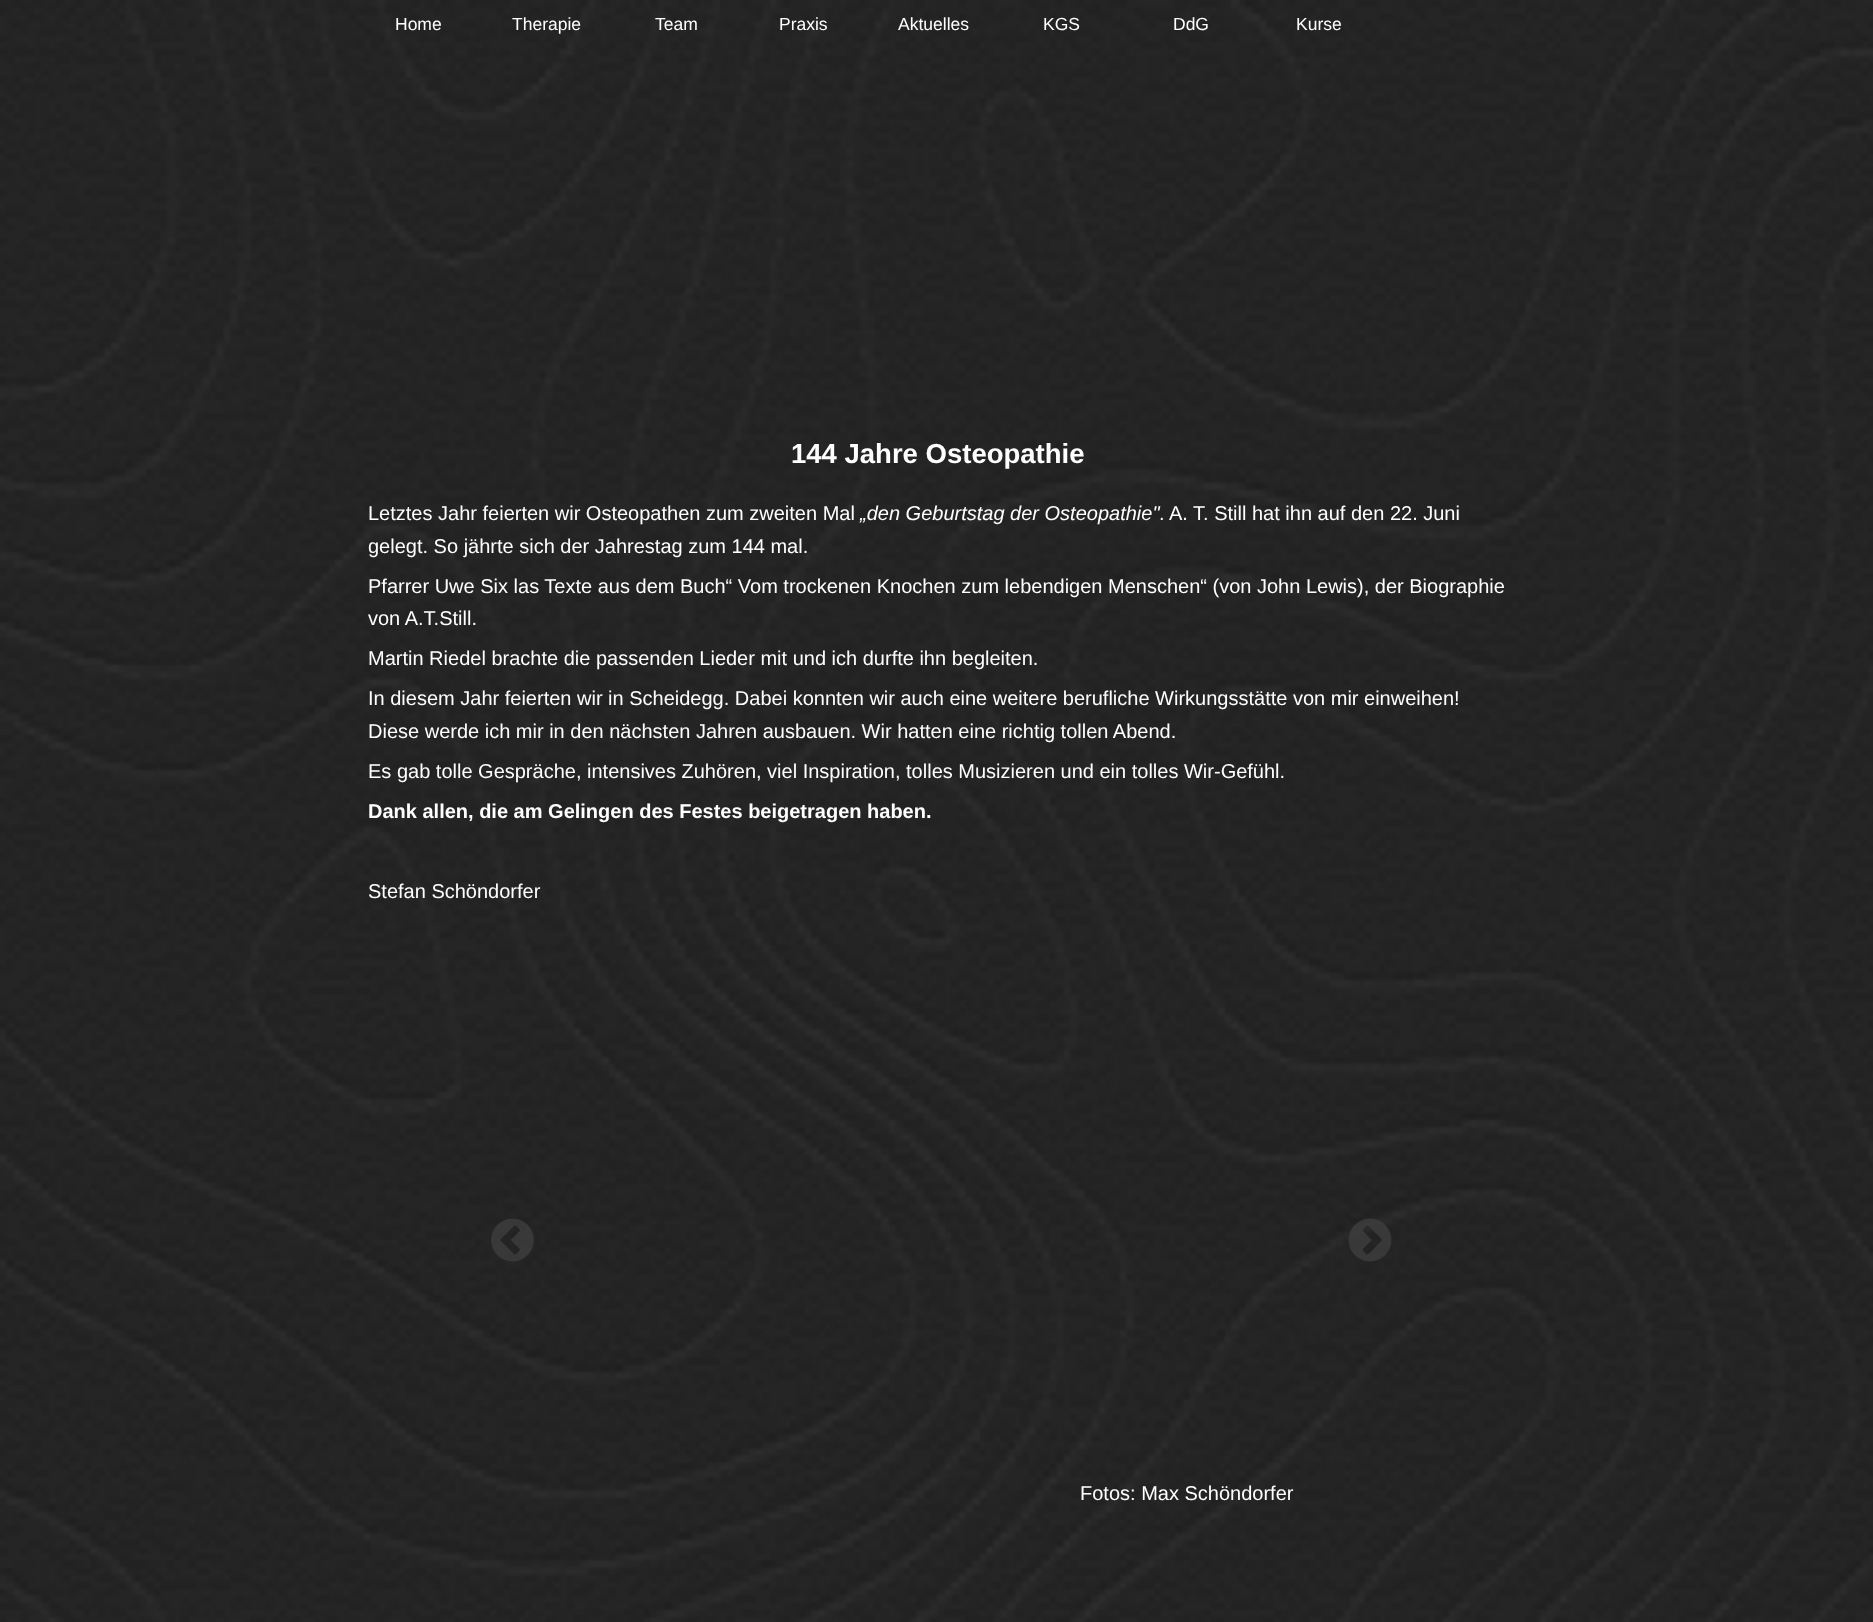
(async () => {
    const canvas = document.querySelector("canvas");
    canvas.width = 1873;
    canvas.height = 1622;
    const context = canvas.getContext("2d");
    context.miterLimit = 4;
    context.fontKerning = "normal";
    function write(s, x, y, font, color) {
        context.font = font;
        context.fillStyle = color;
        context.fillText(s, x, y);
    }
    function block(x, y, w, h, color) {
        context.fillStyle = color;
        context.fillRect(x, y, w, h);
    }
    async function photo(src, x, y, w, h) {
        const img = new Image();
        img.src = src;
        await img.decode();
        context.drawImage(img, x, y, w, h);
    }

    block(0, 0, 1873, 1622, "rgb(255, 255, 255)");
    await photo("media/1.png", 0, 0, 1873, 1622);
    write("Home", 395, 30, "17.5px Liberation Sans", "rgb(255, 255, 255)");
    write("Therapie", 512, 30, "17.5px Liberation Sans", "rgb(255, 255, 255)");
    write("Team", 655, 30, "17.5px Liberation Sans", "rgb(255, 255, 255)");
    write("Praxis", 779, 30, "17.5px Liberation Sans", "rgb(255, 255, 255)");
    write("Aktuelles", 898, 30, "17.5px Liberation Sans", "rgb(255, 255, 255)");
    write("KGS", 1043, 30, "17.5px Liberation Sans", "rgb(255, 255, 255)");
    write("DdG", 1173, 30, "17.5px Liberation Sans", "rgb(255, 255, 255)");
    write("Kurse", 1296, 30, "17.5px Liberation Sans", "rgb(255, 255, 255)");
    write("144 Jahre Osteopathie", 791, 463, "bold 27.5px Liberation Sans", "rgb(255, 255, 255)");
    write("Letztes Jahr feierten wir Osteopathen zum zweiten Mal", 368, 520, "20px Liberation Sans", "rgb(255, 255, 255)");
    write("„den Geburtstag der Osteopathie\"", 860, 520, "italic 20px Liberation Sans", "rgb(255, 255, 255)");
    write(". A. T. Still hat ihn auf den 22. Juni", 1159, 520, "20px Liberation Sans", "rgb(255, 255, 255)");
    write("gelegt. So jährte sich der Jahrestag zum 144 mal.", 368, 553, "20px Liberation Sans", "rgb(255, 255, 255)");
    write("Pfarrer Uwe Six las Texte aus dem Buch“ Vom trockenen Knochen zum lebendigen Menschen“ (von John Lewis), der Biographie", 368, 593, "20px Liberation Sans", "rgb(255, 255, 255)");
    write("von A.T.Still.", 368, 625, "20px Liberation Sans", "rgb(255, 255, 255)");
    write("Martin Riedel brachte die passenden Lieder mit und ich durfte ihn begleiten.", 368, 665, "20px Liberation Sans", "rgb(255, 255, 255)");
    write("In diesem Jahr feierten wir in Scheidegg. Dabei konnten wir auch eine weitere berufliche Wirkungsstätte von mir einweihen!", 368, 705, "20px Liberation Sans", "rgb(255, 255, 255)");
    write("Diese werde ich mir in den nächsten Jahren ausbauen. Wir hatten eine richtig tollen Abend.", 368, 738, "20px Liberation Sans", "rgb(255, 255, 255)");
    write("Es gab tolle Gespräche, intensives Zuhören, viel Inspiration, tolles Musizieren und ein tolles Wir-Gefühl.", 368, 778, "20px Liberation Sans", "rgb(255, 255, 255)");
    write("Dank allen, die am Gelingen des Festes beigetragen haben.", 368, 818, "bold 20px Liberation Sans", "rgb(255, 255, 255)");
    write("Stefan Schöndorfer", 368, 898, "20px Liberation Sans", "rgb(255, 255, 255)");
    await photo("media/2.png", 491, 1218, 43, 44);
    await photo("media/3.png", 1348, 1218, 44, 44);
    write("Fotos: Max Schöndorfer", 1080, 1500, "20px Liberation Sans", "rgb(255, 255, 255)");
})();
